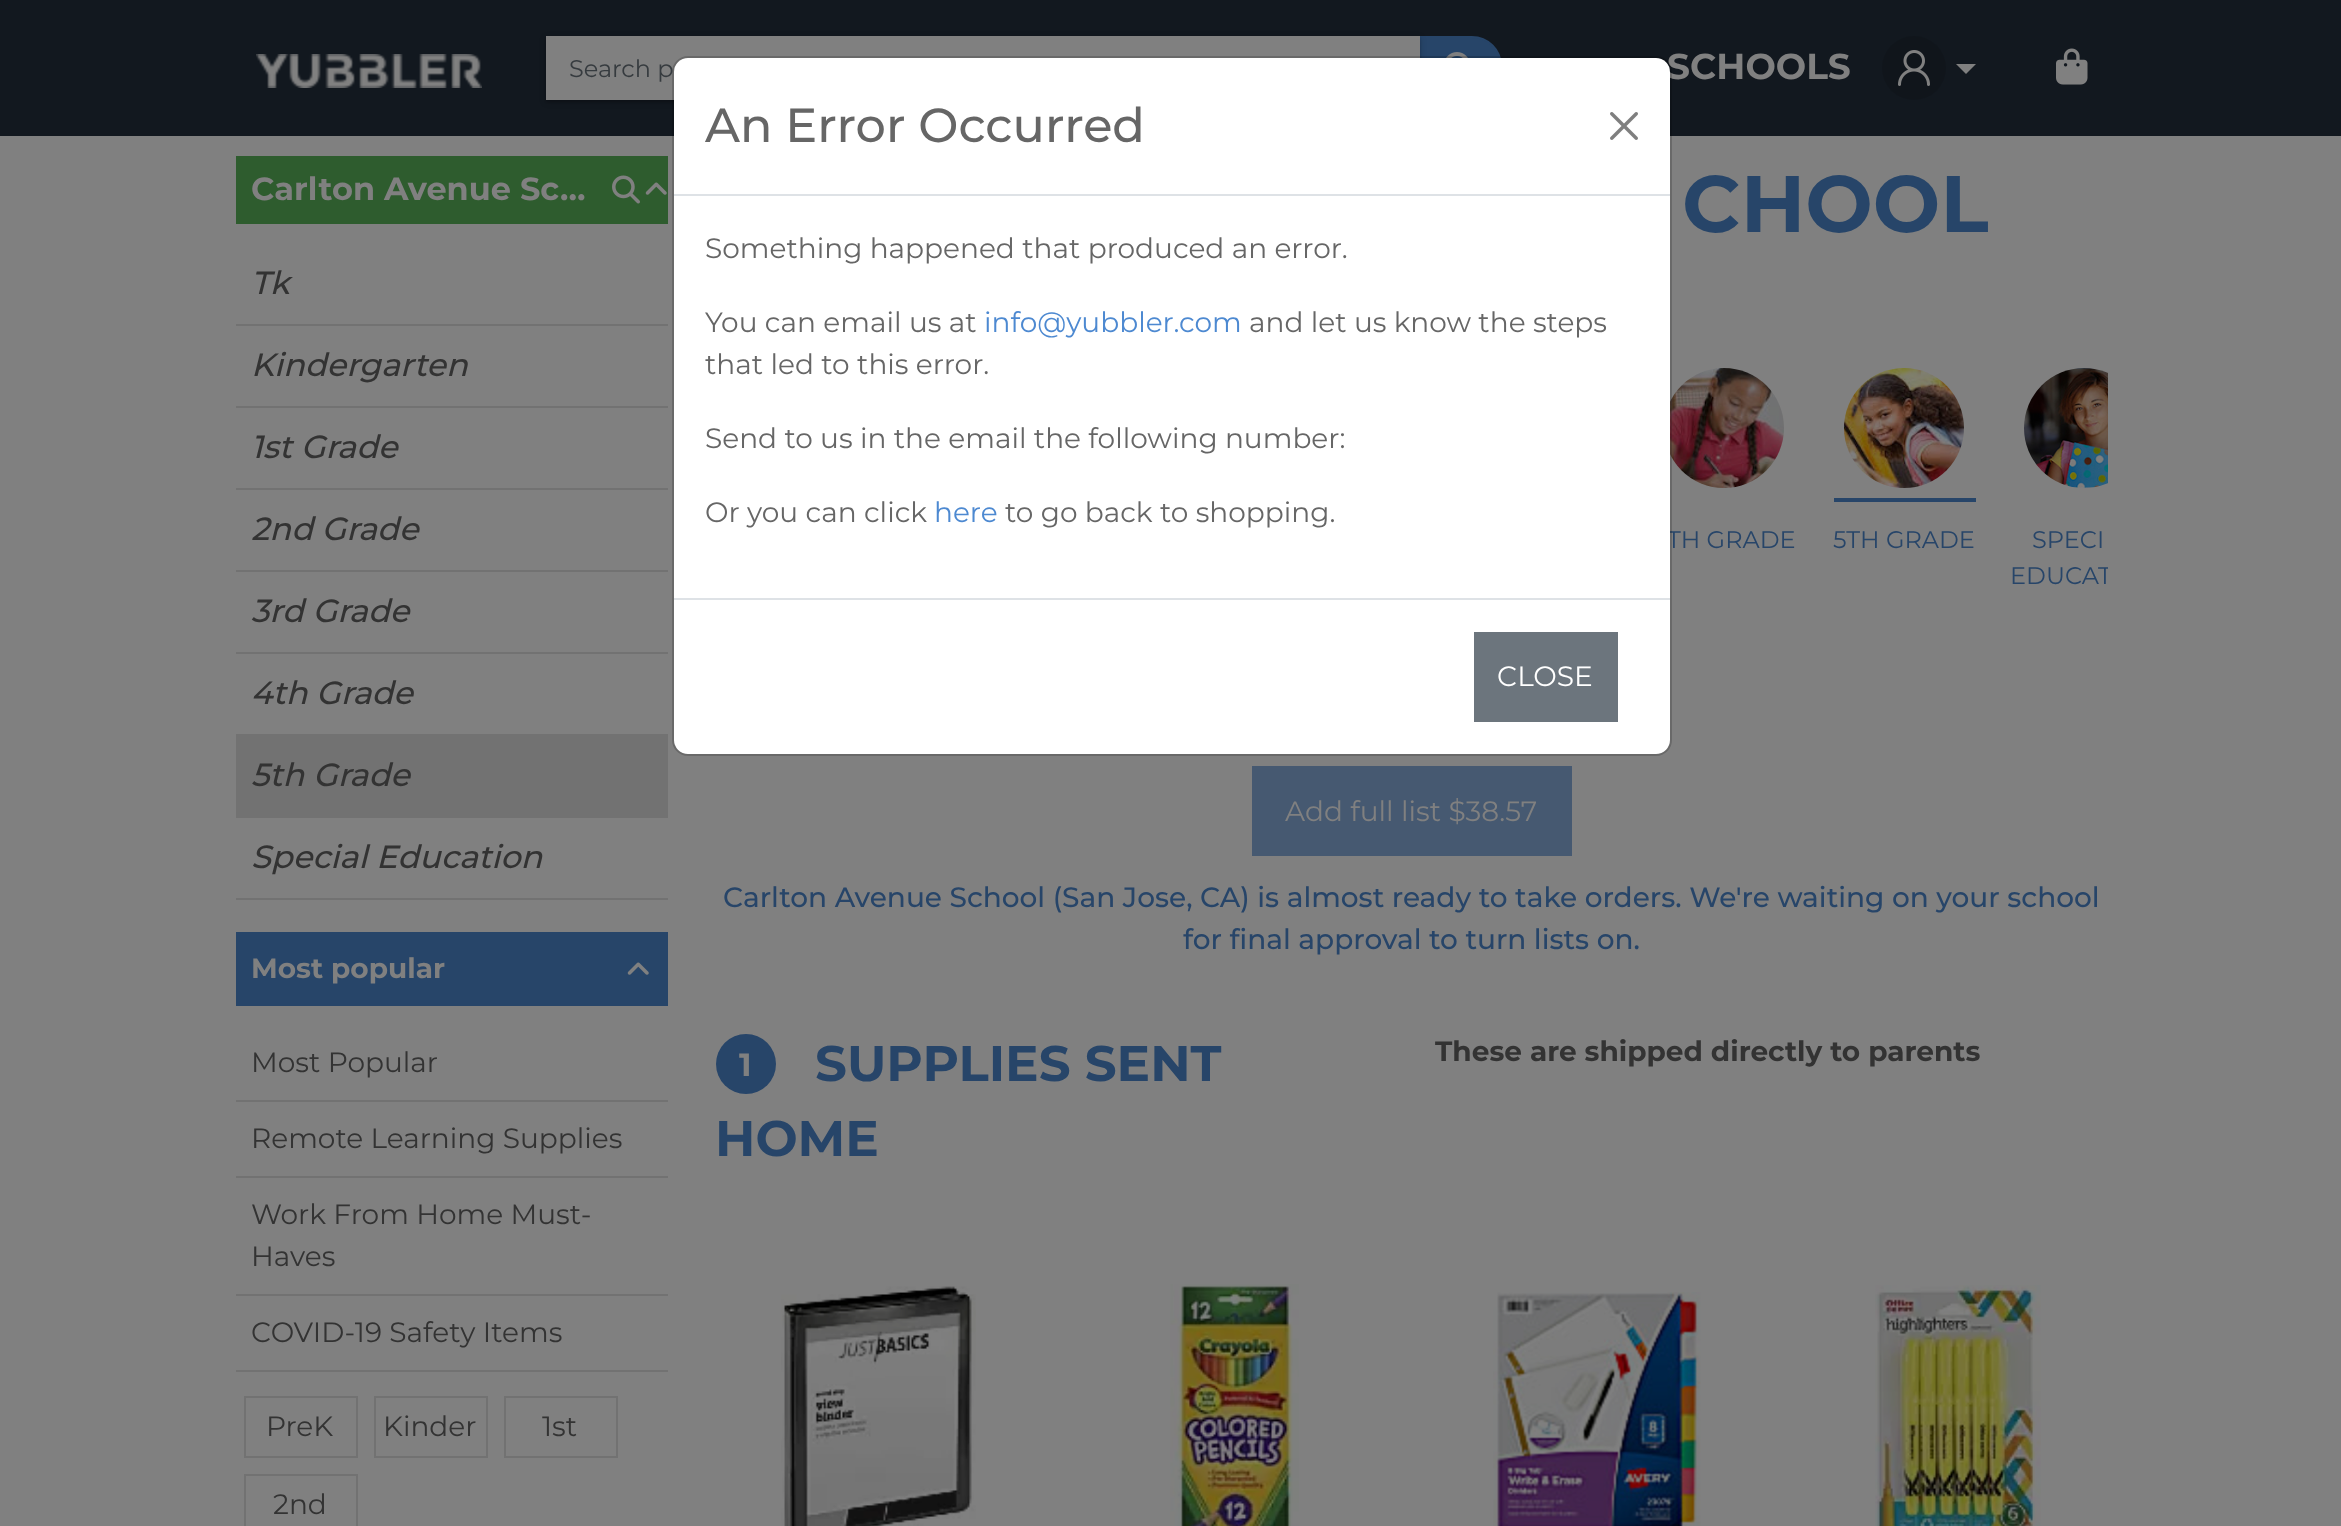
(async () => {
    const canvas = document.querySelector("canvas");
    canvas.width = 2341;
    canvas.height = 1526;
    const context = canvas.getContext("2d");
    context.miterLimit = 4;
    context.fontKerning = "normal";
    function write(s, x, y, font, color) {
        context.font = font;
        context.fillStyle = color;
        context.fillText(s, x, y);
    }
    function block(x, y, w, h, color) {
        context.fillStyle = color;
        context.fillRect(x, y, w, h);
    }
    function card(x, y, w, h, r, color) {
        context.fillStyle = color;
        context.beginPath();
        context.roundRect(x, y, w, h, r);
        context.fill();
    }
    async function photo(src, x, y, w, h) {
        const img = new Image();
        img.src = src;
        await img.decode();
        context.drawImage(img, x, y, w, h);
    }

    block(0, 0, 2341, 1526, "rgb(128, 128, 128)");
    block(0, 0, 2341, 136, "rgb(18, 24, 31)");
    await photo("media/1.png", 256, 54, 226, 34);
    context.fillStyle = "rgb(39, 69, 105)";
    context.beginPath();
    context.roundRect(1419, 37, 82, 62, [0, 29, 29, 0]);
    context.fill();
    context.strokeStyle = "rgb(39, 69, 105)";
    context.lineWidth = 2;
    context.stroke();
    context.fillStyle = "rgba(0, 0, 0, 0.14)";
    context.filter = "blur(1px)";
    context.beginPath();
    context.rect(546, 38, 874, 64);
    context.fill();
    context.filter = "none";
    context.fillStyle = "rgba(0, 0, 0, 0.2)";
    context.filter = "blur(3px)";
    context.beginPath();
    context.rect(546, 38, 874, 64);
    context.fill();
    context.filter = "none";
    block(546, 36, 874, 64, "rgb(128, 128, 128)");
    write("Search p", 569, 77, "24px Montserrat", "rgb(54, 59, 63)");
    await photo("media/2.png", 1446, 52, 22, 6);
    write("SCHOOLS", 1667, 79, "bold 36px Montserrat", "rgb(128, 128, 128)");
    await photo("media/3.png", 1882, 36, 64, 64);
    context.beginPath();
    context.moveTo(1956, 64);
    context.lineTo(1976, 64);
    context.lineTo(1966, 74);
    context.closePath();
    context.fill();
    await photo("media/4.png", 2056, 48, 32, 37);
    block(236, 156, 432, 68, "rgb(46, 92, 46)");
    write("Carlton Avenue Sc…", 251, 200, "bold 32px Montserrat", "rgb(128, 128, 128)");
    await photo("media/5.png", 612, 175, 28, 29);
    await photo("media/6.png", 645, 182, 22, 13);
    block(236, 324, 432, 2, "rgb(114, 114, 114)");
    write("Tk", 251, 294, "italic 500 32px Montserrat", "rgb(51, 51, 51)");
    block(236, 406, 432, 2, "rgb(114, 114, 114)");
    write("Kindergarten", 251, 376, "italic 500 32px Montserrat", "rgb(51, 51, 51)");
    block(236, 488, 432, 2, "rgb(114, 114, 114)");
    write("1st Grade", 251, 458, "italic 500 32px Montserrat", "rgb(51, 51, 51)");
    block(236, 570, 432, 2, "rgb(114, 114, 114)");
    write("2nd Grade", 251, 540, "italic 500 32px Montserrat", "rgb(51, 51, 51)");
    block(236, 652, 432, 2, "rgb(114, 114, 114)");
    write("3rd Grade", 251, 622, "italic 500 32px Montserrat", "rgb(51, 51, 51)");
    block(236, 734, 432, 84, "rgb(114, 114, 114)");
    write("4th Grade", 251, 704, "italic 500 32px Montserrat", "rgb(51, 51, 51)");
    write("5th Grade", 251, 786, "italic 500 32px Montserrat", "rgb(51, 51, 51)");
    block(236, 898, 432, 2, "rgb(114, 114, 114)");
    write("Special Education", 251, 868, "italic 500 32px Montserrat", "rgb(51, 51, 51)");
    block(236, 932, 432, 74, "rgb(39, 69, 105)");
    write("Most popular", 251, 978, "bold 28px Montserrat", "rgb(128, 128, 128)");
    await photo("media/7.png", 627, 962, 22, 13);
    block(236, 1100, 432, 2, "rgb(114, 114, 114)");
    write("Most Popular", 251, 1072, "28px Montserrat", "rgb(51, 51, 51)");
    block(236, 1176, 432, 2, "rgb(114, 114, 114)");
    write("Remote Learning Supplies", 251, 1148, "28px Montserrat", "rgb(51, 51, 51)");
    block(236, 1294, 432, 2, "rgb(114, 114, 114)");
    write("Work From Home Must-", 251, 1224, "28px Montserrat", "rgb(51, 51, 51)");
    write("Haves", 251, 1266, "28px Montserrat", "rgb(51, 51, 51)");
    block(236, 1370, 432, 2, "rgb(114, 114, 114)");
    write("COVID-19 Safety Items", 251, 1342, "28px Montserrat", "rgb(51, 51, 51)");
    context.strokeStyle = "rgb(114, 114, 114)";
    context.strokeRect(245, 1397, 112, 60);
    write("PreK", 266, 1436, "28px Montserrat", "rgb(51, 51, 51)");
    context.strokeRect(375, 1397, 112, 60);
    write("Kinder", 383, 1436, "28px Montserrat", "rgb(51, 51, 51)");
    context.strokeRect(505, 1397, 112, 60);
    write("1st", 542, 1436, "28px Montserrat", "rgb(51, 51, 51)");
    context.strokeRect(245, 1475, 112, 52);
    write("2nd", 273, 1514, "28px Montserrat", "rgb(51, 51, 51)");
    write("CHOOL", 1682, 232, "bold 80px Montserrat", "rgb(39, 69, 105)");
    await photo("media/8.png", 1670, 368, 114, 120);
    write("TH GRADE", 1667, 548, "24px Montserrat", "rgb(39, 69, 105)");
    await photo("media/9.png", 1844, 368, 120, 120);
    block(1834, 498, 142, 4, "rgb(39, 69, 105)");
    write("5TH GRADE", 1833, 548, "24px Montserrat", "rgb(39, 69, 105)");
    await photo("media/10.png", 2024, 368, 84, 120);
    write("SPECI", 2032, 548, "24px Montserrat", "rgb(39, 69, 105)");
    context.save();
    context.beginPath();
    context.rect(716, 368, 1392, 246);
    context.clip();
    write("EDUCAT", 2010, 584, "24px Montserrat", "rgb(39, 69, 105)");
    context.restore();
    block(1252, 766, 320, 90, "rgb(70, 89, 113)");
    write("Add full list $38.57", 1285, 821, "28px Montserrat", "rgb(128, 128, 128)");
    write("Carlton Avenue School (San Jose, CA) is almost ready to take orders. We're waiting on your school", 723, 907, "500 28px Montserrat", "rgb(39, 69, 105)");
    write("for final approval to turn lists on.", 1183, 949, "500 28px Montserrat", "rgb(39, 69, 105)");
    context.beginPath();
    context.arc(746, 1064, 30, 0, Math.PI * 2);
    context.fill();
    write("1", 739, 1076, "bold 32px Montserrat", "rgb(128, 128, 128)");
    write("SUPPLIES SENT", 815, 1081, "bold 50px Montserrat", "rgb(39, 69, 105)");
    write("HOME", 715, 1156, "bold 50px Montserrat", "rgb(39, 69, 105)");
    write("These are shipped directly to parents", 1435, 1061, "bold 28px Montserrat", "rgb(51, 51, 51)");
    await photo("media/11.png", 781, 1286, 195, 240);
    await photo("media/12.png", 1170, 1284, 129, 242);
    await photo("media/13.png", 1493, 1292, 208, 234);
    await photo("media/14.png", 1875, 1285, 166, 241);
    card(674, 58, 996, 696, 14, "rgb(255, 255, 255)");
    context.beginPath();
    context.roundRect(673, 57, 998, 698, 15);
    context.strokeStyle = "rgba(0, 0, 0, 0.18)";
    context.stroke();
    block(674, 194, 996, 2, "rgb(222, 226, 230)");
    write("An Error Occurred", 705, 142, "500 47.75px Montserrat", "rgb(102, 102, 102)");
    await photo("media/15.png", 1610, 112, 28, 28);
    write("Something happened that produced an error.", 705, 258, "28px Montserrat", "rgb(102, 102, 102)");
    write("You can email us at", 705, 332, "28px Montserrat", "rgb(102, 102, 102)");
    write("info@yubbler.com", 984, 332, "28px Montserrat", "rgb(77, 137, 209)");
    write("and let us know the steps", 1249, 332, "28px Montserrat", "rgb(102, 102, 102)");
    write("that led to this error.", 705, 374, "28px Montserrat", "rgb(102, 102, 102)");
    write("Send to us in the email the following number:", 705, 448, "28px Montserrat", "rgb(102, 102, 102)");
    write("Or you can click", 705, 522, "28px Montserrat", "rgb(102, 102, 102)");
    write("here", 934, 522, "28px Montserrat", "rgb(77, 137, 209)");
    write("to go back to shopping.", 1005, 522, "28px Montserrat", "rgb(102, 102, 102)");
    block(674, 598, 996, 2, "rgb(222, 226, 230)");
    block(1474, 632, 144, 90, "rgb(108, 117, 125)");
    write("CLOSE", 1497, 686, "28px Montserrat", "rgb(255, 255, 255)");
})();
